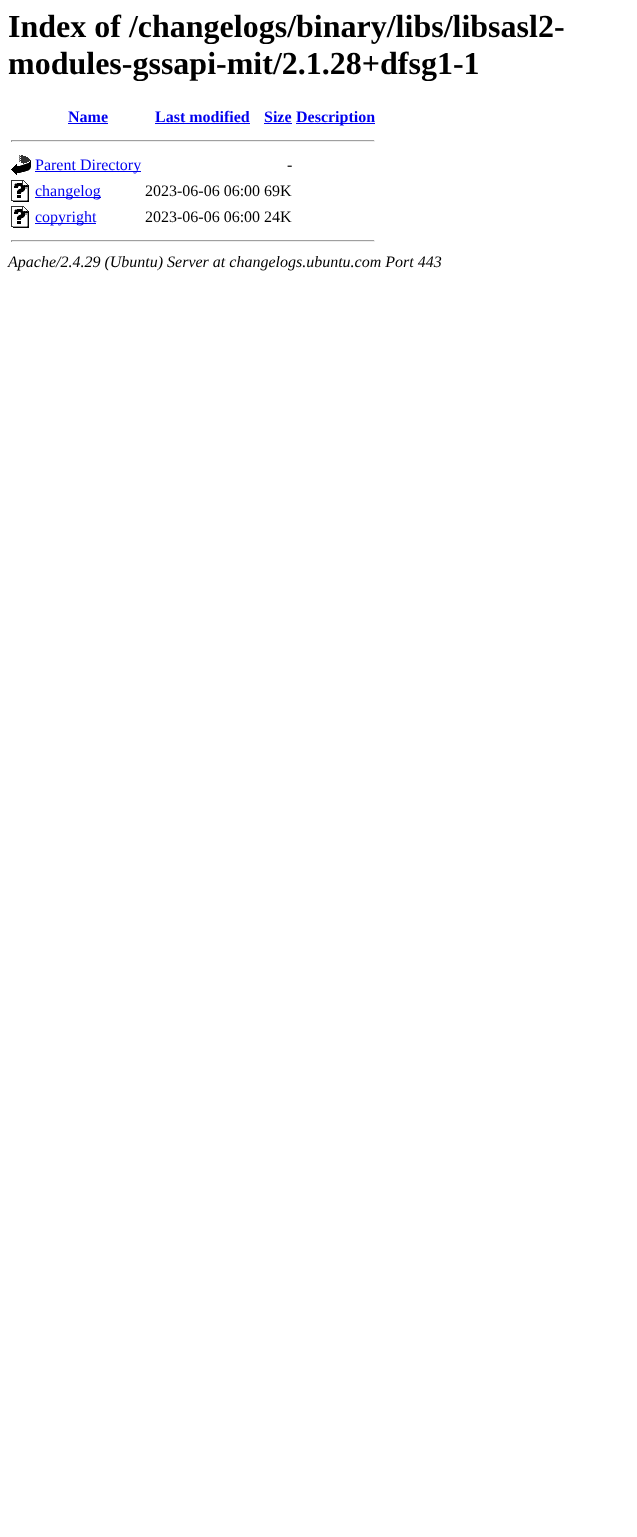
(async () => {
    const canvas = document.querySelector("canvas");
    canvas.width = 637;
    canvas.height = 1537;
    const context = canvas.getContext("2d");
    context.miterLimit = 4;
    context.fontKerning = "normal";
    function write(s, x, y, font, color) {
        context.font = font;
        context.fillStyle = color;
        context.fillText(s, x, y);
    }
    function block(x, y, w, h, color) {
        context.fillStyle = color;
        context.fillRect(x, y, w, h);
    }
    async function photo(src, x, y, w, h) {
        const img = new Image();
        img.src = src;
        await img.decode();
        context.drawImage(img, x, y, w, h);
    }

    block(0, 0, 637, 1537, "rgb(255, 255, 255)");
    write("Index of /changelogs/binary/libs/libsasl2-", 8, 37, "bold 32px Liberation Serif", "rgb(0, 0, 0)");
    write("modules-gssapi-mit/2.1.28+dfsg1-1", 8, 74, "bold 32px Liberation Serif", "rgb(0, 0, 0)");
    write("Name", 68, 122, "bold 16px Liberation Serif", "rgb(0, 0, 238)");
    block(68, 123, 40, 1, "rgb(0, 0, 238)");
    write("Last modified", 155, 122, "bold 16px Liberation Serif", "rgb(0, 0, 238)");
    block(155, 123, 95, 1, "rgb(0, 0, 238)");
    write("Size", 264, 122, "bold 16px Liberation Serif", "rgb(0, 0, 238)");
    block(264, 123, 28, 1, "rgb(0, 0, 238)");
    block(296, 123, 79, 1, "rgb(0, 0, 238)");
    write("Description", 296, 122, "bold 16px Liberation Serif", "rgb(0, 0, 238)");
    block(11, 140, 364, 1, "rgb(159, 159, 159)");
    block(374, 140, 1, 2, "rgb(238, 238, 238)");
    block(11, 141, 364, 1, "rgb(238, 238, 238)");
    block(11, 140, 1, 2, "rgb(159, 159, 159)");
    await photo("media/1.png", 11, 155, 20, 20);
    block(35, 171, 106, 1, "rgb(0, 0, 238)");
    write("Parent Directory", 35, 170, "16px Liberation Serif", "rgb(0, 0, 238)");
    write("-", 287, 170, "16px Liberation Serif", "rgb(0, 0, 0)");
    await photo("media/2.png", 11, 180, 18, 22);
    block(35, 197, 66, 1, "rgb(0, 0, 238)");
    write("changelog", 35, 196, "16px Liberation Serif", "rgb(0, 0, 238)");
    write("2023-06-06 06:00 69K", 145, 196, "16px Liberation Serif", "rgb(0, 0, 0)");
    await photo("media/2.png", 11, 206, 18, 22);
    block(35, 223, 61, 1, "rgb(0, 0, 238)");
    write("copyright", 35, 222, "16px Liberation Serif", "rgb(0, 0, 238)");
    write("2023-06-06 06:00 24K", 145, 222, "16px Liberation Serif", "rgb(0, 0, 0)");
    block(11, 240, 364, 1, "rgb(159, 159, 159)");
    block(374, 240, 1, 2, "rgb(238, 238, 238)");
    block(11, 241, 364, 1, "rgb(238, 238, 238)");
    block(11, 240, 1, 2, "rgb(159, 159, 159)");
    write("Apache/2.4.29 (Ubuntu) Server at changelogs.ubuntu.com Port 443", 8, 267, "italic 16px Liberation Serif", "rgb(0, 0, 0)");
})();
